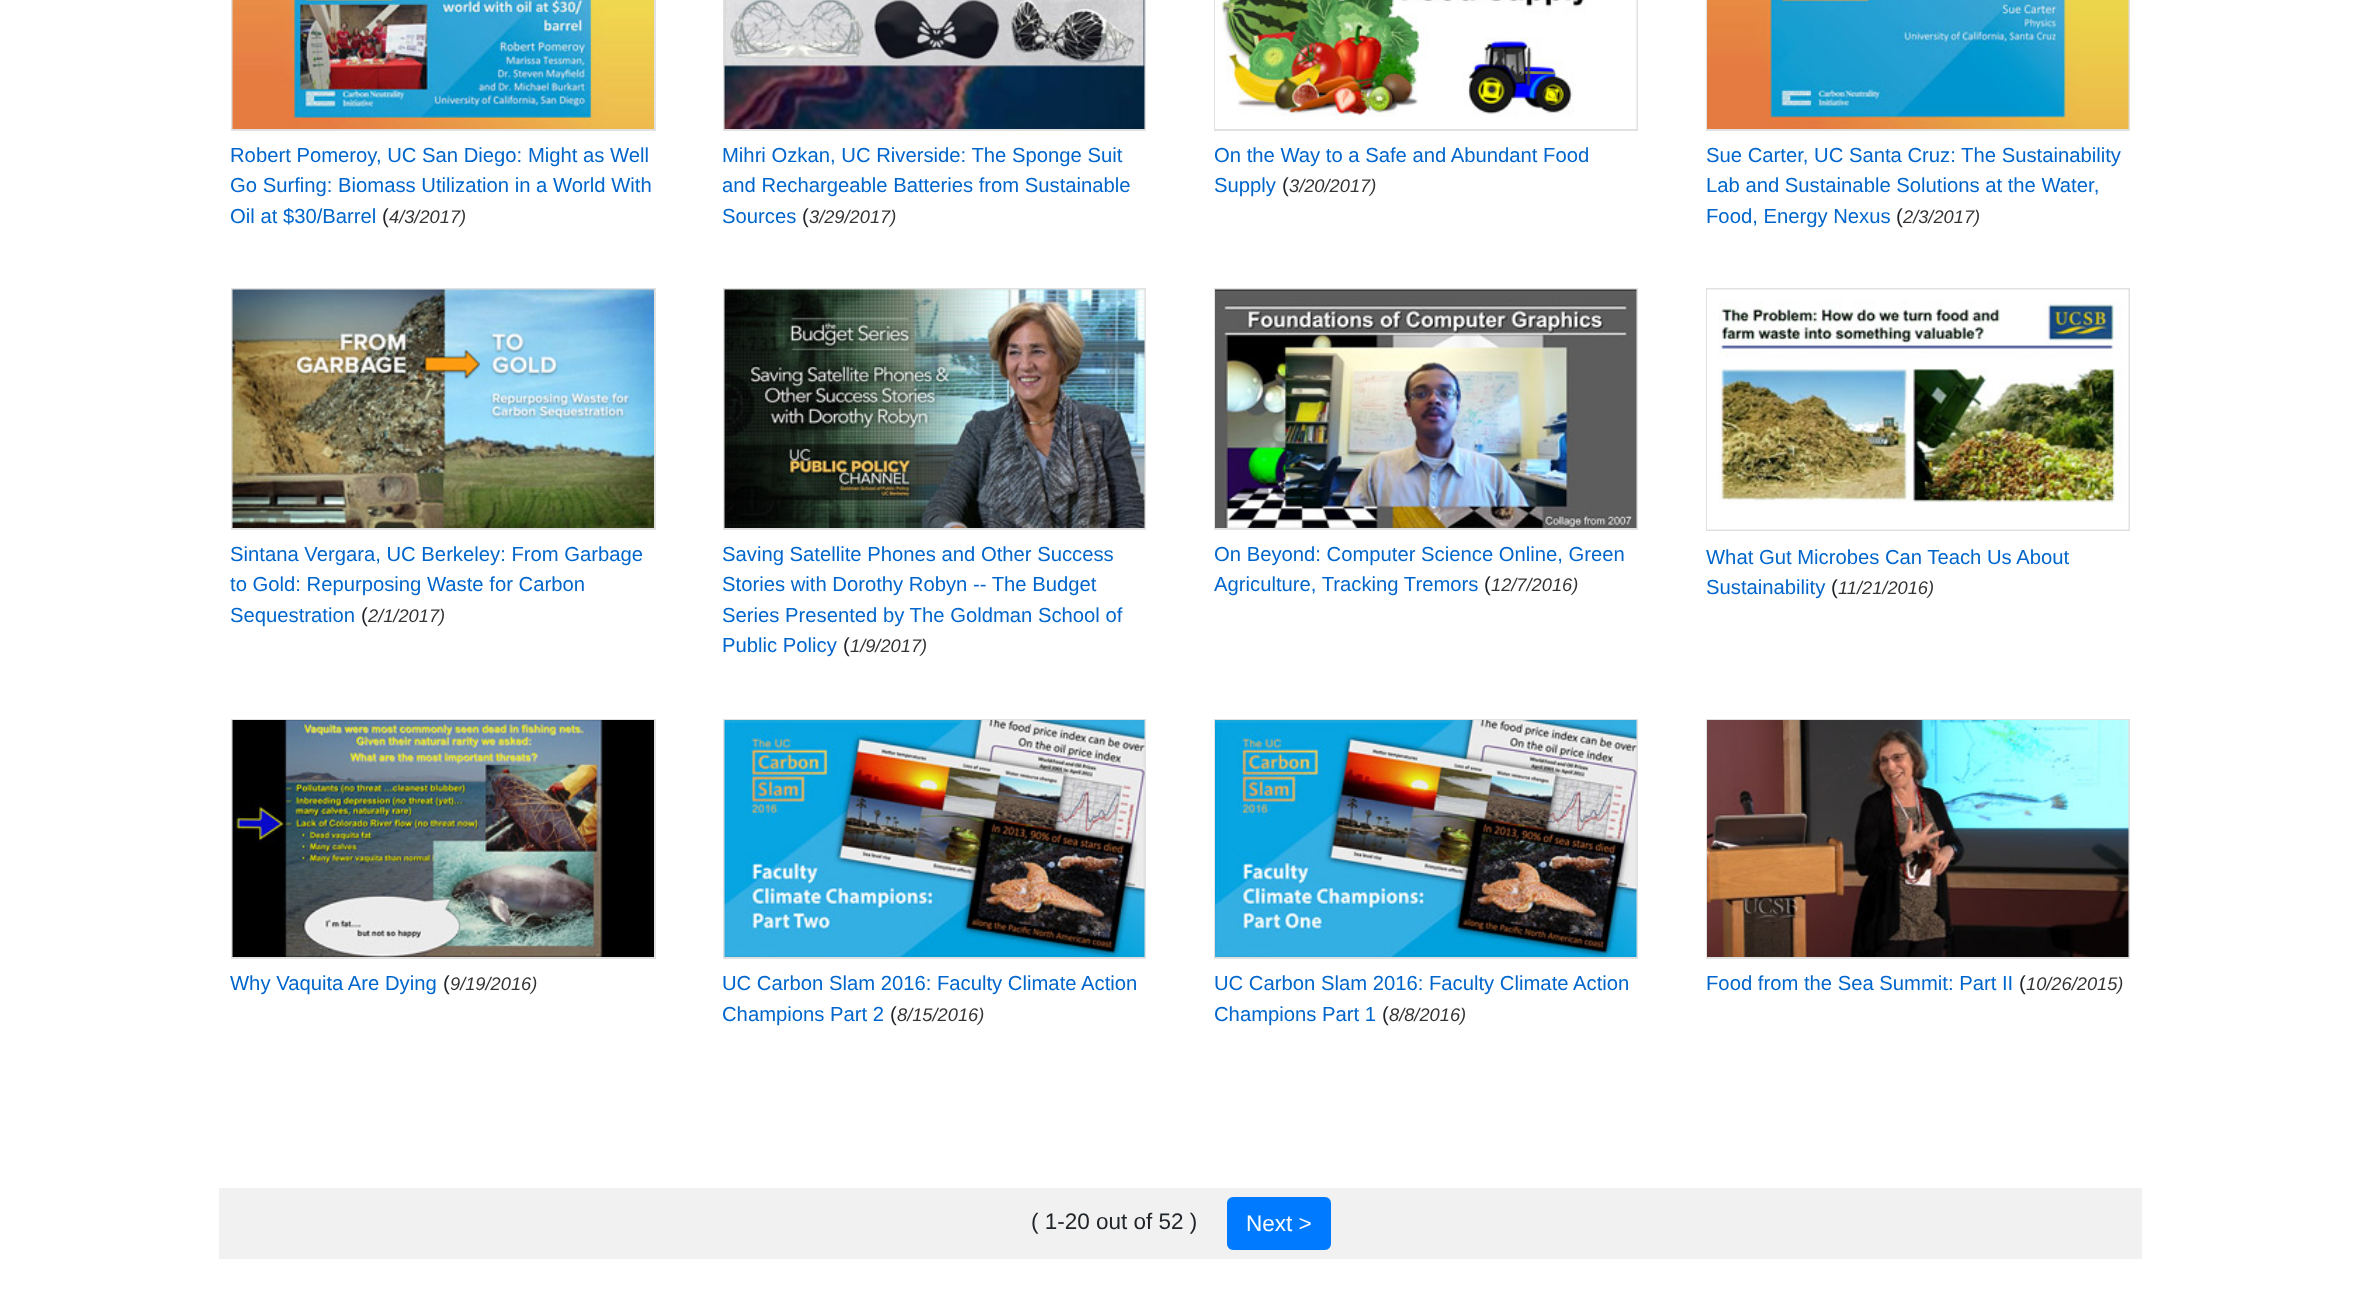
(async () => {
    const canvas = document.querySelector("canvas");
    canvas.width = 2360;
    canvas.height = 1305;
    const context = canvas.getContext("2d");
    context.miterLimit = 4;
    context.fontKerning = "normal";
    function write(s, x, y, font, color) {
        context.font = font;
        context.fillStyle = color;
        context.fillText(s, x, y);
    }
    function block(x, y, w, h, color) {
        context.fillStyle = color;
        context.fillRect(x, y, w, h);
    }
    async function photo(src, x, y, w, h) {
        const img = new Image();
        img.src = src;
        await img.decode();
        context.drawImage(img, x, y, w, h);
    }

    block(0, 0, 2360, 1305, "rgb(255, 255, 255)");
    context.strokeStyle = "rgb(225, 225, 225)";
    context.lineWidth = 2;
    context.strokeRect(232, -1, 423, 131);
    await photo("media/1.png", 232, 0, 422, 129);
    write("Robert Pomeroy, UC San Diego: Might as Well", 230, 162, "20.25px Liberation Sans", "rgb(0, 102, 204)");
    write("Go Surfing: Biomass Utilization in a World With", 230, 192, "20.25px Liberation Sans", "rgb(0, 102, 204)");
    write("Oil at $30/Barrel", 230, 223, "20.25px Liberation Sans", "rgb(0, 102, 204)");
    write("(", 382, 223, "20.25px Liberation Sans", "rgb(33, 37, 41)");
    write("4/3/2017)", 389, 223, "italic 18.25px Liberation Sans", "rgb(51, 51, 51)");
    context.strokeRect(724, -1, 421, 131);
    await photo("media/2.png", 724, 0, 421, 129);
    write("Mihri Ozkan, UC Riverside: The Sponge Suit", 722, 162, "20.25px Liberation Sans", "rgb(0, 102, 204)");
    write("and Rechargeable Batteries from Sustainable", 722, 192, "20.25px Liberation Sans", "rgb(0, 102, 204)");
    write("Sources", 722, 223, "20.25px Liberation Sans", "rgb(0, 102, 204)");
    write("(", 802, 223, "20.25px Liberation Sans", "rgb(33, 37, 41)");
    write("3/29/2017)", 809, 223, "italic 18.25px Liberation Sans", "rgb(51, 51, 51)");
    context.strokeRect(1215, -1, 422, 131);
    await photo("media/3.png", 1215, 0, 422, 129);
    write("On the Way to a Safe and Abundant Food", 1214, 162, "20.25px Liberation Sans", "rgb(0, 102, 204)");
    write("Supply", 1214, 192, "20.25px Liberation Sans", "rgb(0, 102, 204)");
    write("(", 1282, 192, "20.25px Liberation Sans", "rgb(33, 37, 41)");
    write("3/20/2017)", 1289, 192, "italic 18.25px Liberation Sans", "rgb(51, 51, 51)");
    context.strokeRect(1707, -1, 422, 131);
    await photo("media/4.png", 1707, 0, 422, 129);
    write("Sue Carter, UC Santa Cruz: The Sustainability", 1706, 162, "20.25px Liberation Sans", "rgb(0, 102, 204)");
    write("Lab and Sustainable Solutions at the Water,", 1706, 192, "20.25px Liberation Sans", "rgb(0, 102, 204)");
    write("Food, Energy Nexus", 1706, 223, "20.25px Liberation Sans", "rgb(0, 102, 204)");
    write("(", 1896, 223, "20.25px Liberation Sans", "rgb(33, 37, 41)");
    write("2/3/2017)", 1903, 223, "italic 18.25px Liberation Sans", "rgb(51, 51, 51)");
    context.strokeRect(232, 289, 423, 240);
    await photo("media/5.png", 232, 289, 422, 239);
    write("Sintana Vergara, UC Berkeley: From Garbage", 230, 561, "20.25px Liberation Sans", "rgb(0, 102, 204)");
    write("to Gold: Repurposing Waste for Carbon", 230, 591, "20.25px Liberation Sans", "rgb(0, 102, 204)");
    write("Sequestration", 230, 622, "20.25px Liberation Sans", "rgb(0, 102, 204)");
    write("(", 361, 622, "20.25px Liberation Sans", "rgb(33, 37, 41)");
    write("2/1/2017)", 368, 622, "italic 18.25px Liberation Sans", "rgb(51, 51, 51)");
    context.strokeRect(724, 289, 421, 240);
    await photo("media/6.png", 724, 289, 421, 239);
    write("Saving Satellite Phones and Other Success", 722, 561, "20.25px Liberation Sans", "rgb(0, 102, 204)");
    write("Stories with Dorothy Robyn -- The Budget", 722, 591, "20.25px Liberation Sans", "rgb(0, 102, 204)");
    write("Series Presented by The Goldman School of", 722, 622, "20.25px Liberation Sans", "rgb(0, 102, 204)");
    write("Public Policy", 722, 652, "20.25px Liberation Sans", "rgb(0, 102, 204)");
    write("(", 843, 652, "20.25px Liberation Sans", "rgb(33, 37, 41)");
    write("1/9/2017)", 850, 652, "italic 18.25px Liberation Sans", "rgb(51, 51, 51)");
    context.strokeRect(1215, 289, 422, 240);
    await photo("media/7.png", 1215, 289, 422, 239);
    write("On Beyond: Computer Science Online, Green", 1214, 561, "20.25px Liberation Sans", "rgb(0, 102, 204)");
    write("Agriculture, Tracking Tremors", 1214, 591, "20.25px Liberation Sans", "rgb(0, 102, 204)");
    write("(", 1484, 591, "20.25px Liberation Sans", "rgb(33, 37, 41)");
    write("12/7/2016)", 1491, 591, "italic 18.25px Liberation Sans", "rgb(51, 51, 51)");
    context.strokeRect(1707, 289, 422, 241);
    await photo("media/8.png", 1707, 289, 422, 241);
    write("What Gut Microbes Can Teach Us About", 1706, 564, "20.25px Liberation Sans", "rgb(0, 102, 204)");
    write("Sustainability", 1706, 594, "20.25px Liberation Sans", "rgb(0, 102, 204)");
    write("(", 1831, 594, "20.25px Liberation Sans", "rgb(33, 37, 41)");
    write("11/21/2016)", 1838, 594, "italic 18.25px Liberation Sans", "rgb(51, 51, 51)");
    context.strokeRect(232, 720, 423, 238);
    await photo("media/9.png", 232, 720, 422, 237);
    write("Why Vaquita Are Dying", 230, 990, "20.25px Liberation Sans", "rgb(0, 102, 204)");
    write("(", 443, 990, "20.25px Liberation Sans", "rgb(33, 37, 41)");
    write("9/19/2016)", 450, 990, "italic 18.25px Liberation Sans", "rgb(51, 51, 51)");
    context.strokeRect(724, 720, 421, 238);
    await photo("media/10.png", 724, 720, 421, 237);
    write("UC Carbon Slam 2016: Faculty Climate Action", 722, 990, "20.25px Liberation Sans", "rgb(0, 102, 204)");
    write("Champions Part 2", 722, 1021, "20.25px Liberation Sans", "rgb(0, 102, 204)");
    write("(", 890, 1021, "20.25px Liberation Sans", "rgb(33, 37, 41)");
    write("8/15/2016)", 897, 1021, "italic 18.25px Liberation Sans", "rgb(51, 51, 51)");
    context.strokeRect(1215, 720, 422, 238);
    await photo("media/11.png", 1215, 720, 422, 237);
    write("UC Carbon Slam 2016: Faculty Climate Action", 1214, 990, "20.25px Liberation Sans", "rgb(0, 102, 204)");
    write("Champions Part 1", 1214, 1021, "20.25px Liberation Sans", "rgb(0, 102, 204)");
    write("(", 1382, 1021, "20.25px Liberation Sans", "rgb(33, 37, 41)");
    write("8/8/2016)", 1389, 1021, "italic 18.25px Liberation Sans", "rgb(51, 51, 51)");
    context.strokeRect(1707, 720, 422, 238);
    await photo("media/12.png", 1707, 720, 422, 237);
    write("Food from the Sea Summit: Part II", 1706, 990, "20.25px Liberation Sans", "rgb(0, 102, 204)");
    write("(", 2019, 990, "20.25px Liberation Sans", "rgb(33, 37, 41)");
    write("10/26/2015)", 2026, 990, "italic 18.25px Liberation Sans", "rgb(51, 51, 51)");
    block(219, 1188, 1923, 71, "rgb(241, 241, 241)");
    write("( 1-20 out of 52 )", 1031, 1229, "22.5px Liberation Sans", "rgb(33, 37, 41)");
    context.fillStyle = "rgb(0, 123, 255)";
    context.beginPath();
    context.roundRect(1228, 1198, 102, 51, 5);
    context.fill();
    context.strokeStyle = "rgb(0, 123, 255)";
    context.stroke();
    write("Next >", 1246, 1231, "22.5px Liberation Sans", "rgb(255, 255, 255)");
})();
